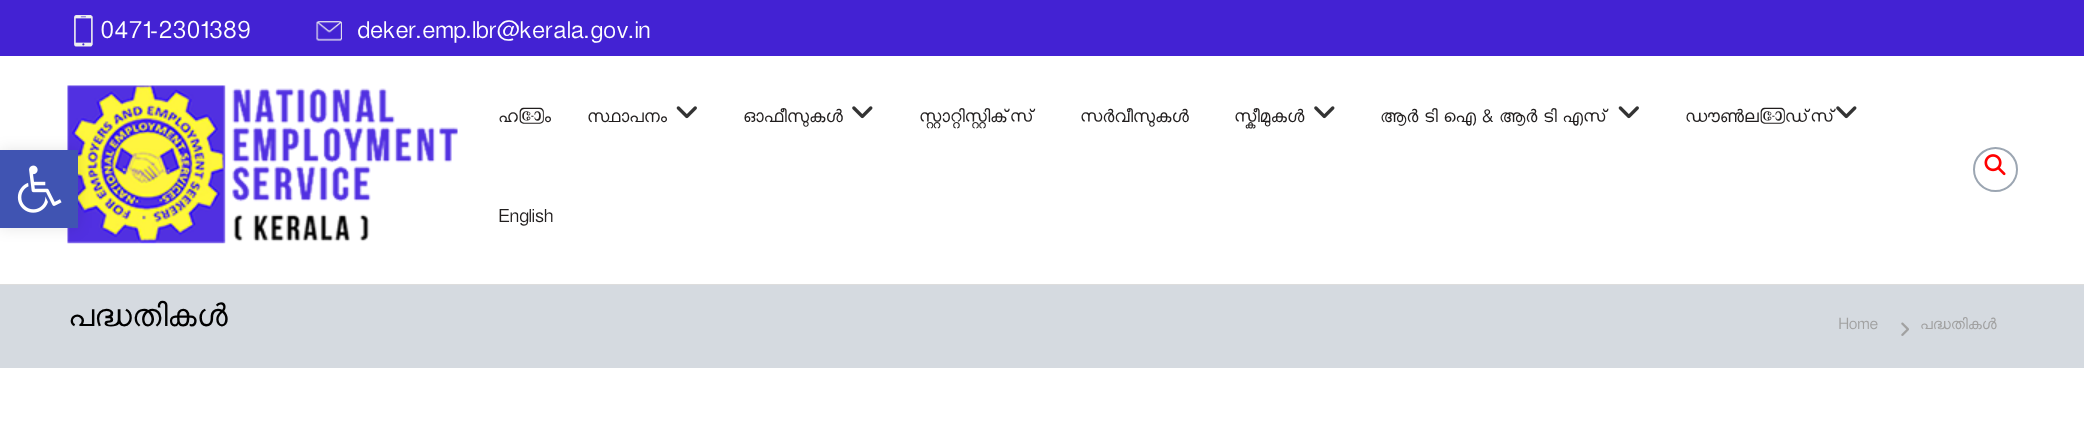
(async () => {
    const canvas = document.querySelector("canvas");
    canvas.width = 2084;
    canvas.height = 439;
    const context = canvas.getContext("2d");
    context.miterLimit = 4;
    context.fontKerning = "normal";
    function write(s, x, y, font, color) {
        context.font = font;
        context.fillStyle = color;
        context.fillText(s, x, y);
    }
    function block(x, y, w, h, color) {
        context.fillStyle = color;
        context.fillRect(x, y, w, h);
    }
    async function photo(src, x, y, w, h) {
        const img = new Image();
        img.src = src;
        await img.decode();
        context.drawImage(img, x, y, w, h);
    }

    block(0, 0, 2084, 439, "rgb(255, 255, 255)");
    await photo("media/4.png", 67, 85, 391, 159);
    context.fillStyle = "rgba(0, 0, 0, 0.1)";
    context.filter = "blur(7.5px)";
    context.beginPath();
    context.rect(0, 150, 78, 78);
    context.fill();
    context.filter = "none";
    block(0, 150, 78, 78, "rgb(64, 84, 178)");
    await photo("media/1.png", 17, 165, 45, 48);
    block(0, 0, 2084, 56, "rgb(67, 34, 211)");
    await photo("media/2.png", 74, 15, 19, 32);
    write("0471-2301389", 99, 38, "27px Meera", "rgb(255, 255, 255)");
    await photo("media/3.png", 316, 21, 26, 20);
    write("deker.emp.lbr@kerala.gov.in", 356, 38, "27px Meera", "rgb(255, 255, 255)");
    block(0, 284, 2084, 1, "rgb(221, 221, 221)");
    write("ഹോം", 498, 122, "21px Meera", "rgb(33, 30, 30)");
    write("സ്ഥാപനം", 587, 122, "21px Meera", "rgb(33, 30, 30)");
    await photo("media/5.png", 676, 106, 21, 13);
    write("ഓഫീസുകൾ", 743, 122, "21px Meera", "rgb(33, 30, 30)");
    await photo("media/6.png", 852, 106, 21, 13);
    write("സ്റ്റാറ്റിസ്റ്റിക്‌സ്", 919, 122, "21px Meera", "rgb(33, 30, 30)");
    write("സർവീസുകൾ", 1080, 122, "21px Meera", "rgb(33, 30, 30)");
    write("സ്കീമുകൾ", 1234, 122, "21px Meera", "rgb(33, 30, 30)");
    await photo("media/6.png", 1314, 106, 21, 13);
    write("ആർ ടി ഐ & ആർ ടി എസ്", 1380, 122, "21px Meera", "rgb(33, 30, 30)");
    await photo("media/5.png", 1618, 106, 21, 13);
    write("ഡൗൺലോഡ്സ്", 1685, 122, "21px Meera", "rgb(33, 30, 30)");
    await photo("media/6.png", 1836, 106, 21, 13);
    write("English", 498, 222, "21px Meera", "rgb(33, 30, 30)");
    context.beginPath();
    context.arc(1995.5, 169.5, 21.5, 0, Math.PI * 2);
    context.strokeStyle = "rgb(156, 166, 178)";
    context.lineWidth = 2;
    context.stroke();
    await photo("media/7.png", 1984, 154, 22, 22);
    block(0, 285, 2084, 83, "rgb(213, 218, 224)");
    write("പദ്ധതികൾ", 68, 326, "37.5px Meera", "rgb(0, 0, 0)");
    write("Home", 1838, 329, "18px Meera", "rgb(161, 161, 161)");
    await photo("media/8.png", 1901, 322, 8, 14);
    write("പദ്ധതികൾ", 1920, 329, "18px Meera", "rgb(161, 161, 161)");
})();
